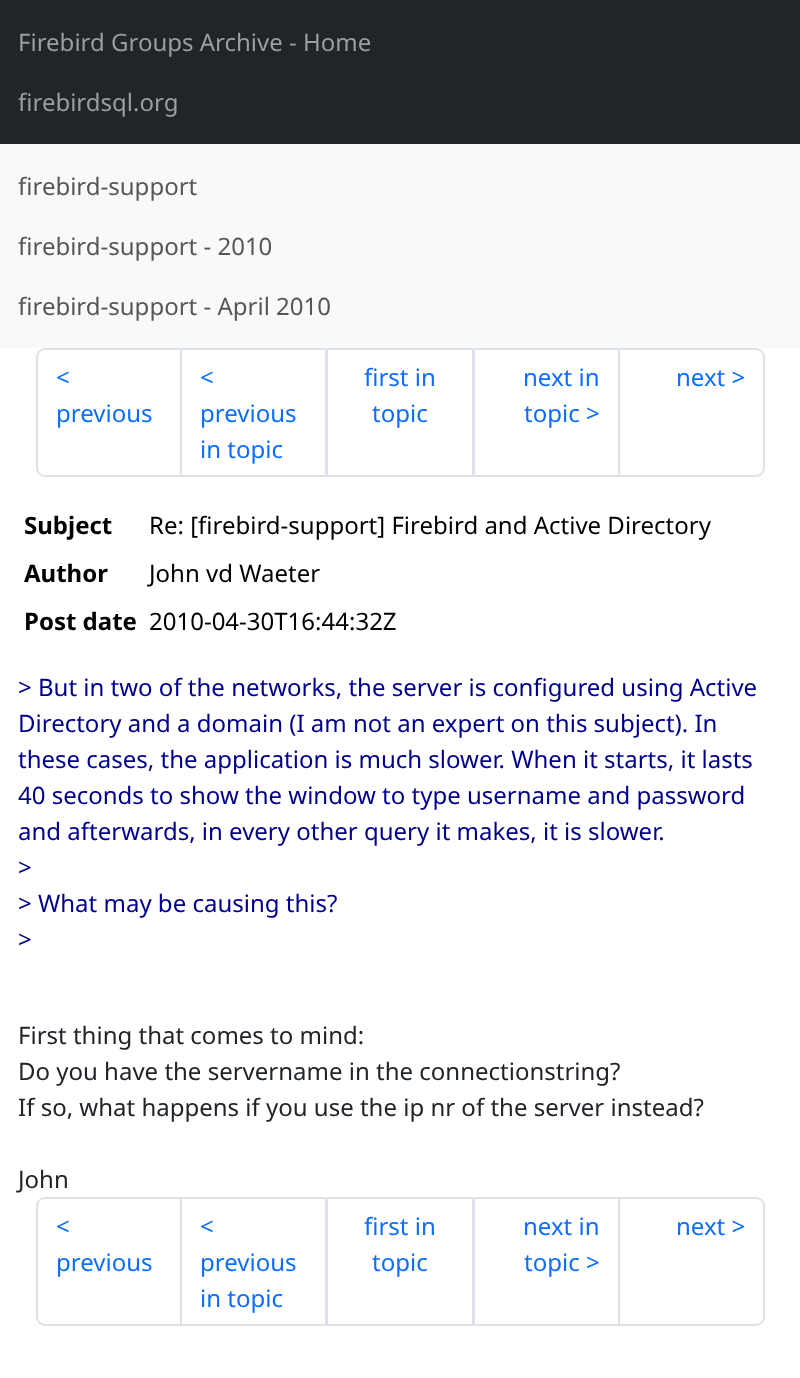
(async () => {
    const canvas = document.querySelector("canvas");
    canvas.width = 800;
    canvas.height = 1378;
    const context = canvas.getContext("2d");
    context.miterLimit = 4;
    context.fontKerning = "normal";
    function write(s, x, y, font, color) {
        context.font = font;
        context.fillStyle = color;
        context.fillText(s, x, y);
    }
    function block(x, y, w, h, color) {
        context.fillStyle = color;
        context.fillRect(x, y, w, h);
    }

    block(0, 0, 800, 1378, "rgb(255, 255, 255)");
    block(0, 0, 800, 144, "rgb(33, 37, 41)");
    write("Firebird Groups Archive - Home", 18, 51, "24px Noto Sans", "rgb(155, 157, 159)");
    write("firebirdsql.org", 18, 111, "24px Noto Sans", "rgb(155, 157, 159)");
    block(0, 144, 800, 204, "rgb(248, 249, 250)");
    write("firebird-support", 18, 195, "24px Noto Sans", "rgb(87, 87, 88)");
    write("firebird-support - 2010", 18, 255, "24px Noto Sans", "rgb(87, 87, 88)");
    write("firebird-support - April 2010", 18, 315, "24px Noto Sans", "rgb(87, 87, 88)");
    context.beginPath();
    context.roundRect(37, 349, 144, 127, [8, 0, 0, 8]);
    context.strokeStyle = "rgb(222, 226, 230)";
    context.lineWidth = 2;
    context.stroke();
    write("<", 56, 386, "24px Noto Sans", "rgb(13, 110, 253)");
    write("previous", 56, 422, "24px Noto Sans", "rgb(13, 110, 253)");
    context.strokeRect(181, 349, 145, 127);
    write("<", 200, 386, "24px Noto Sans", "rgb(13, 110, 253)");
    write("previous", 200, 422, "24px Noto Sans", "rgb(13, 110, 253)");
    write("in topic", 200, 458, "24px Noto Sans", "rgb(13, 110, 253)");
    context.strokeRect(327, 349, 146, 127);
    write("first in", 364, 386, "24px Noto Sans", "rgb(13, 110, 253)");
    write("topic", 372, 422, "24px Noto Sans", "rgb(13, 110, 253)");
    context.strokeRect(474, 349, 145, 127);
    write("next in", 523, 386, "24px Noto Sans", "rgb(13, 110, 253)");
    write("topic >", 524, 422, "24px Noto Sans", "rgb(13, 110, 253)");
    context.fillStyle = "rgb(255, 255, 255)";
    context.beginPath();
    context.roundRect(619, 349, 145, 127, [0, 8, 8, 0]);
    context.fill();
    context.stroke();
    write("next >", 676, 386, "24px Noto Sans", "rgb(13, 110, 253)");
    write("Subject", 24, 534, "bold 24px Noto Sans", "rgb(0, 0, 0)");
    write("Re: [firebird-support] Firebird and Active Directory", 149, 534, "24px Noto Sans", "rgb(0, 0, 0)");
    write("Author", 24, 582, "bold 24px Noto Sans", "rgb(0, 0, 0)");
    write("John vd Waeter", 149, 582, "24px Noto Sans", "rgb(0, 0, 0)");
    write("Post date", 24, 630, "bold 24px Noto Sans", "rgb(0, 0, 0)");
    write("2010-04-30T16:44:32Z", 149, 630, "24px Noto Sans", "rgb(0, 0, 0)");
    write("> But in two of the networks, the server is configured using Active", 18, 696, "24px Noto Sans", "rgb(0, 0, 139)");
    write("Directory and a domain (I am not an expert on this subject). In", 18, 732, "24px Noto Sans", "rgb(0, 0, 139)");
    write("these cases, the application is much slower. When it starts, it lasts", 18, 768, "24px Noto Sans", "rgb(0, 0, 139)");
    write("40 seconds to show the window to type username and password", 18, 804, "24px Noto Sans", "rgb(0, 0, 139)");
    write("and afterwards, in every other query it makes, it is slower.", 18, 840, "24px Noto Sans", "rgb(0, 0, 139)");
    write(">", 18, 876, "24px Noto Sans", "rgb(0, 0, 139)");
    write("> What may be causing this?", 18, 912, "24px Noto Sans", "rgb(0, 0, 139)");
    write(">", 18, 948, "24px Noto Sans", "rgb(0, 0, 139)");
    write("First thing that comes to mind:", 18, 1044, "24px Noto Sans", "rgb(33, 37, 41)");
    write("Do you have the servername in the connectionstring?", 18, 1080, "24px Noto Sans", "rgb(33, 37, 41)");
    write("If so, what happens if you use the ip nr of the server instead?", 18, 1116, "24px Noto Sans", "rgb(33, 37, 41)");
    write("John", 18, 1188, "24px Noto Sans", "rgb(33, 37, 41)");
    context.beginPath();
    context.roundRect(37, 1198, 144, 127, [8, 0, 0, 8]);
    context.stroke();
    write("<", 56, 1235, "24px Noto Sans", "rgb(13, 110, 253)");
    write("previous", 56, 1271, "24px Noto Sans", "rgb(13, 110, 253)");
    context.strokeRect(181, 1198, 145, 127);
    write("<", 200, 1235, "24px Noto Sans", "rgb(13, 110, 253)");
    write("previous", 200, 1271, "24px Noto Sans", "rgb(13, 110, 253)");
    write("in topic", 200, 1307, "24px Noto Sans", "rgb(13, 110, 253)");
    context.strokeRect(327, 1198, 146, 127);
    write("first in", 364, 1235, "24px Noto Sans", "rgb(13, 110, 253)");
    write("topic", 372, 1271, "24px Noto Sans", "rgb(13, 110, 253)");
    context.strokeRect(474, 1198, 145, 127);
    write("next in", 523, 1235, "24px Noto Sans", "rgb(13, 110, 253)");
    write("topic >", 524, 1271, "24px Noto Sans", "rgb(13, 110, 253)");
    context.fillStyle = "rgb(255, 255, 255)";
    context.beginPath();
    context.roundRect(619, 1198, 145, 127, [0, 8, 8, 0]);
    context.fill();
    context.stroke();
    write("next >", 676, 1235, "24px Noto Sans", "rgb(13, 110, 253)");
})();
